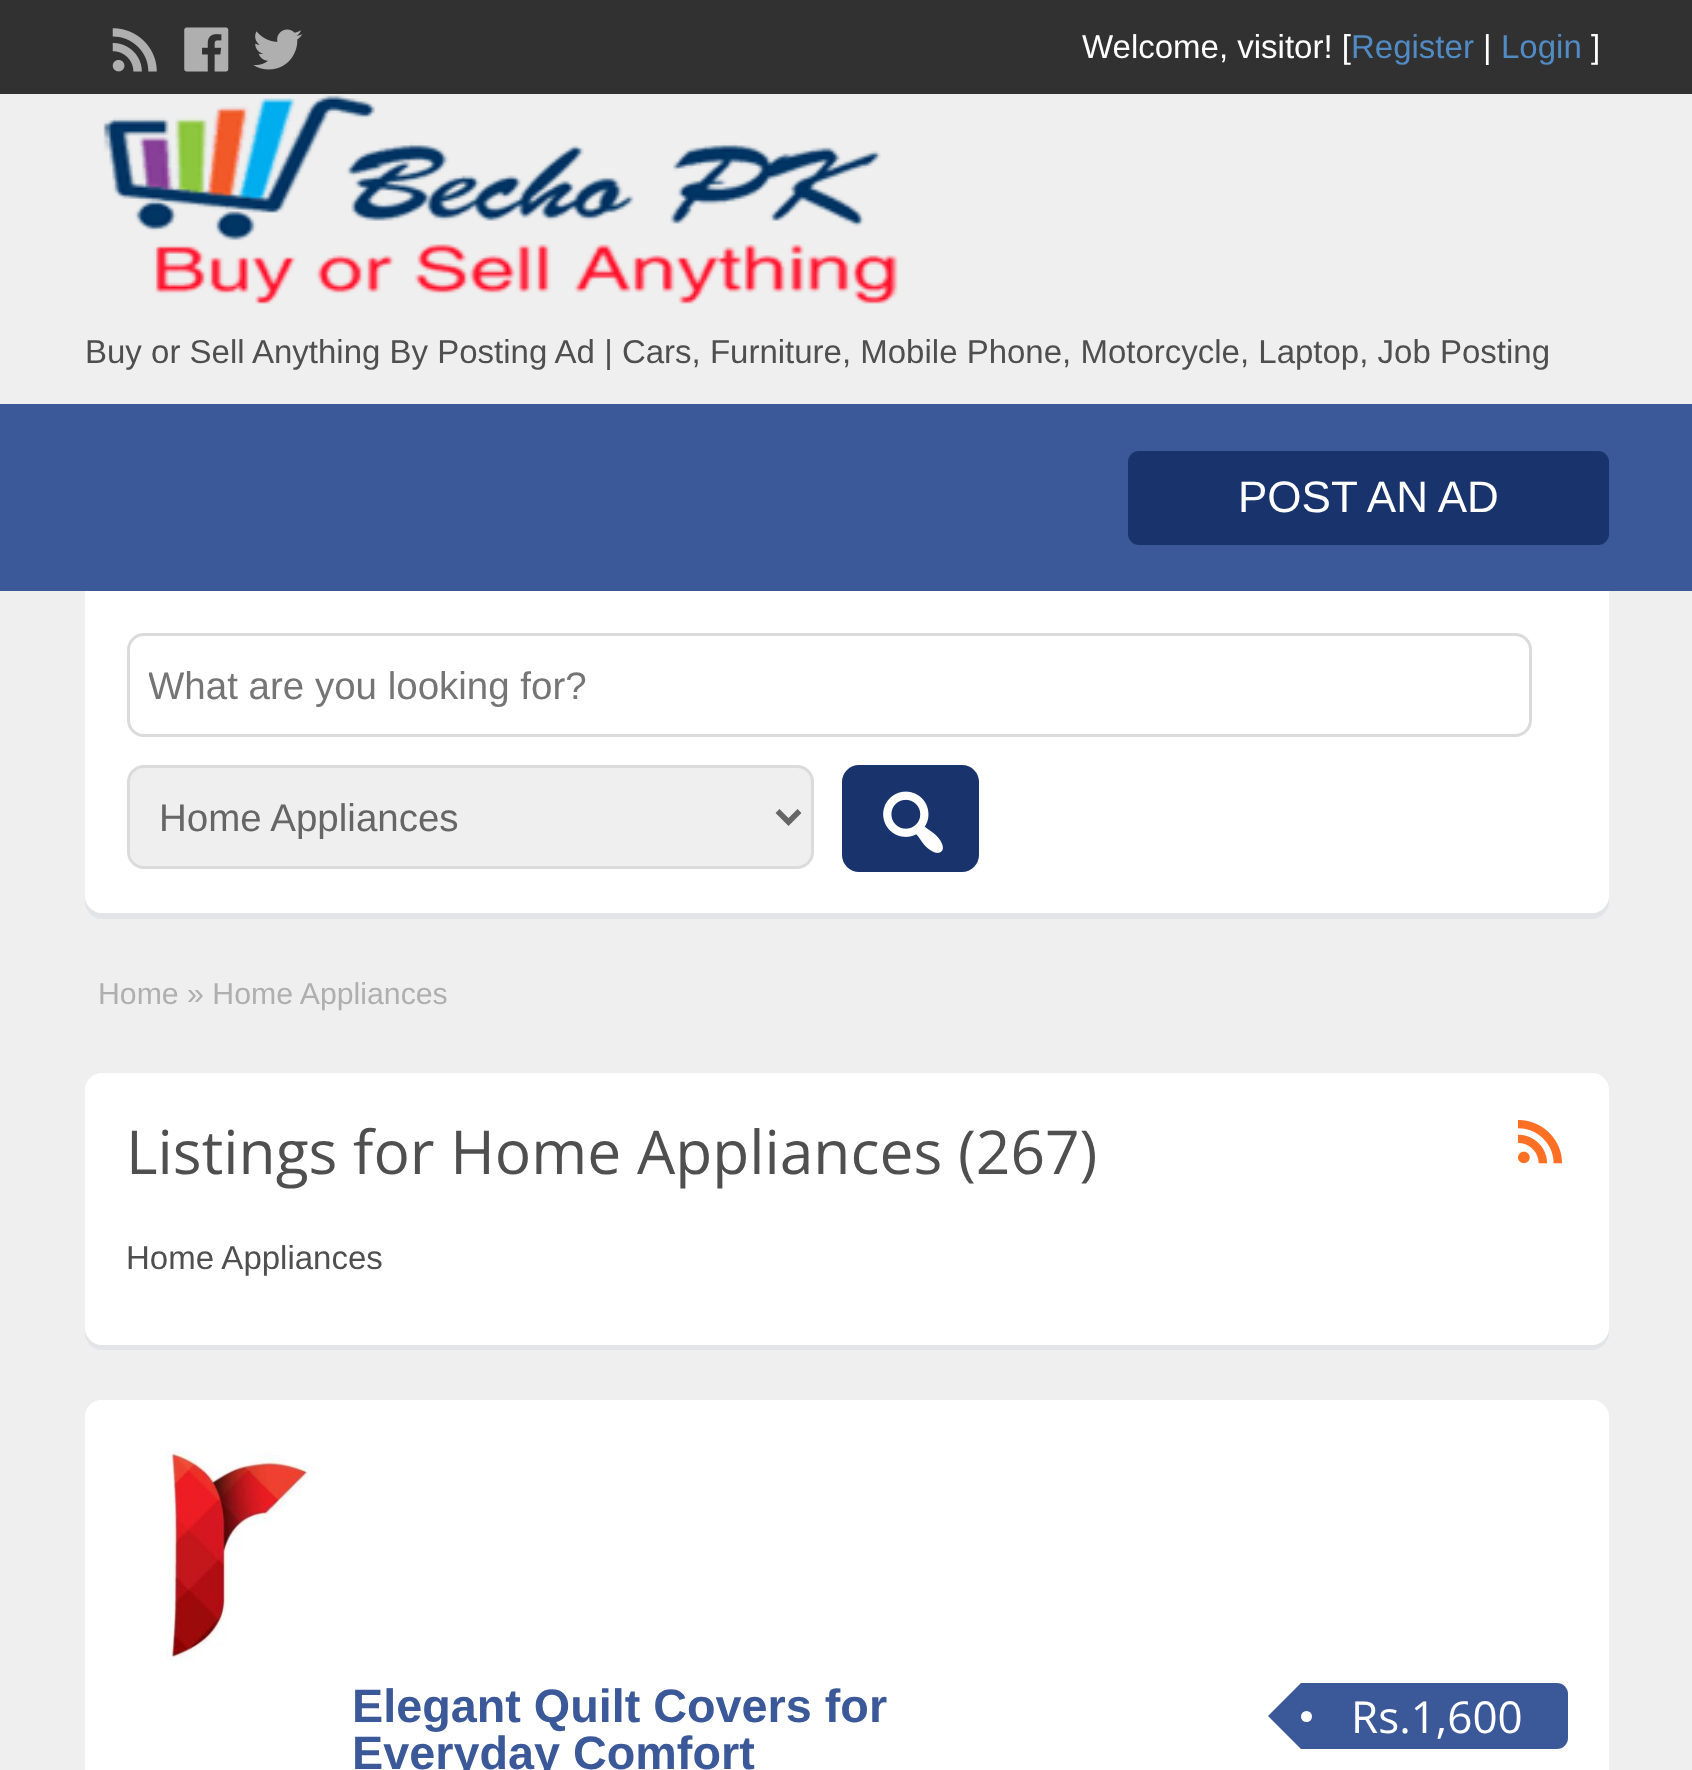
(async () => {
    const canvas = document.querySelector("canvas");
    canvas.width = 1692;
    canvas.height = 1770;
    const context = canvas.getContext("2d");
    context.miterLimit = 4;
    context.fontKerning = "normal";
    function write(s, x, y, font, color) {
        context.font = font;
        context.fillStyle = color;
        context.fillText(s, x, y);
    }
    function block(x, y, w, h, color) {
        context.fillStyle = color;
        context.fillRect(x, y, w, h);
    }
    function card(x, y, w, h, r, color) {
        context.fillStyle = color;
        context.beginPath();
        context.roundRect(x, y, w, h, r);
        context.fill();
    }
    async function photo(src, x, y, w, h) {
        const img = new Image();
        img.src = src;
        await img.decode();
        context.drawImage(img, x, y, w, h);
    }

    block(0, 0, 1692, 1770, "rgb(239, 239, 239)");
    block(0, 0, 1692, 94, "rgb(49, 49, 49)");
    await photo("media/1.png", 112, 28, 45, 44);
    await photo("media/2.png", 184, 27, 45, 45);
    await photo("media/3.png", 253, 29, 50, 41);
    write("Welcome, visitor! [", 1082, 58, "33px Liberation Sans", "rgb(255, 255, 255)");
    write("Register", 1351, 58, "33px Liberation Sans", "rgb(82, 139, 195)");
    write("|", 1483, 58, "33px Liberation Sans", "rgb(255, 255, 255)");
    write("Login", 1501, 58, "33px Liberation Sans", "rgb(82, 139, 195)");
    write("]", 1591, 58, "33px Liberation Sans", "rgb(255, 255, 255)");
    await photo("media/4.png", 103, 95, 795, 209);
    write("Buy or Sell Anything By Posting Ad | Cars, Furniture, Mobile Phone, Motorcycle, Laptop, Job Posting", 85, 363, "33px Liberation Sans", "rgb(79, 79, 79)");
    block(0, 404, 1692, 187, "rgb(59, 89, 152)");
    card(1128, 451, 481, 94, 11, "rgb(25, 52, 108)");
    write("POST AN AD", 1238, 512, "44px Liberation Sans", "rgb(255, 255, 255)");
    context.fillStyle = "rgb(227, 228, 231)";
    context.beginPath();
    context.moveTo(85, 597);
    context.lineTo(85, 902);
    context.bezierCurveTo(85, 911, 93, 919, 102, 919);
    context.lineTo(1592, 919);
    context.bezierCurveTo(1601, 919, 1609, 911, 1609, 902);
    context.lineTo(1609, 597);
    context.lineTo(1609, 896);
    context.bezierCurveTo(1609, 906, 1601, 913, 1592, 913);
    context.lineTo(102, 913);
    context.bezierCurveTo(93, 913, 85, 906, 85, 896);
    context.closePath();
    context.fill();
    context.fillStyle = "rgb(255, 255, 255)";
    context.beginPath();
    context.roundRect(85, 591, 1524, 322, [0, 0, 17, 17]);
    context.fill();
    context.beginPath();
    context.roundRect(128.5, 634.5, 1402, 101, 15.5);
    context.strokeStyle = "rgb(219, 219, 219)";
    context.lineWidth = 3;
    context.stroke();
    context.save();
    context.beginPath();
    context.rect(149, 663, 1361, 44);
    context.clip();
    write("What are you looking for?", 148, 699, "38.5px Liberation Sans", "rgb(117, 117, 117)");
    context.restore();
    context.fillStyle = "rgb(239, 239, 239)";
    context.beginPath();
    context.roundRect(128.5, 766.5, 684, 101, 15.5);
    context.fill();
    context.stroke();
    context.beginPath();
    context.moveTo(777.5, 811);
    context.lineTo(788.5, 822);
    context.lineTo(799.5, 811);
    context.strokeStyle = "rgb(102, 102, 102)";
    context.lineWidth = 5.5;
    context.stroke();
    write("Home Appliances", 159, 831, "38.5px Liberation Sans", "rgb(102, 102, 102)");
    card(842, 765, 137, 107, 17, "rgb(25, 52, 108)");
    await photo("media/5.png", 883, 791, 60, 62);
    write("Home » Home Appliances", 98, 1004, "30.25px Liberation Sans", "rgb(175, 175, 175)");
    context.fillStyle = "rgb(227, 228, 231)";
    context.beginPath();
    context.moveTo(85, 1092);
    context.lineTo(85, 1333);
    context.bezierCurveTo(85, 1342, 93, 1350, 102, 1350);
    context.lineTo(1592, 1350);
    context.bezierCurveTo(1601, 1350, 1609, 1342, 1609, 1333);
    context.lineTo(1609, 1092);
    context.lineTo(1609, 1328);
    context.bezierCurveTo(1609, 1337, 1601, 1345, 1592, 1345);
    context.lineTo(102, 1345);
    context.bezierCurveTo(93, 1345, 85, 1337, 85, 1328);
    context.closePath();
    context.fill();
    card(85, 1073, 1524, 272, 17, "rgb(255, 255, 255)");
    write("Listings for Home Appliances (267)", 126, 1174, "60.5px Open Sans", "rgb(79, 79, 79)");
    await photo("media/6.png", 1517, 1120, 45, 44);
    write("Home Appliances", 126, 1269, "33px Liberation Sans", "rgb(79, 79, 79)");
    card(85, 1400, 1524, 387, 17, "rgb(255, 255, 255)");
    card(85, 1400, 1518, 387, 17, "rgb(255, 255, 255)");
    await photo("media/7.png", 166, 1450, 150, 210);
    write("Elegant Quilt Covers for", 352, 1722, "bold 46.75px Liberation Sans", "rgb(59, 89, 152)");
    write("Everyday Comfort", 352, 1769, "bold 46.75px Liberation Sans", "rgb(59, 89, 152)");
    context.beginPath();
    context.roundRect(1301, 1683, 267, 66, [0, 11, 11, 0]);
    context.fill();
    context.beginPath();
    context.moveTo(1301, 1683);
    context.lineTo(1301, 1749);
    context.lineTo(1268, 1716);
    context.closePath();
    context.fill();
    context.fillStyle = "rgb(255, 255, 255)";
    context.beginPath();
    context.arc(1306.5, 1716.5, 5.5, 0, Math.PI * 2);
    context.fill();
    write("Rs.1,600", 1351, 1733, "44px Open Sans", "rgb(255, 255, 255)");
})();
